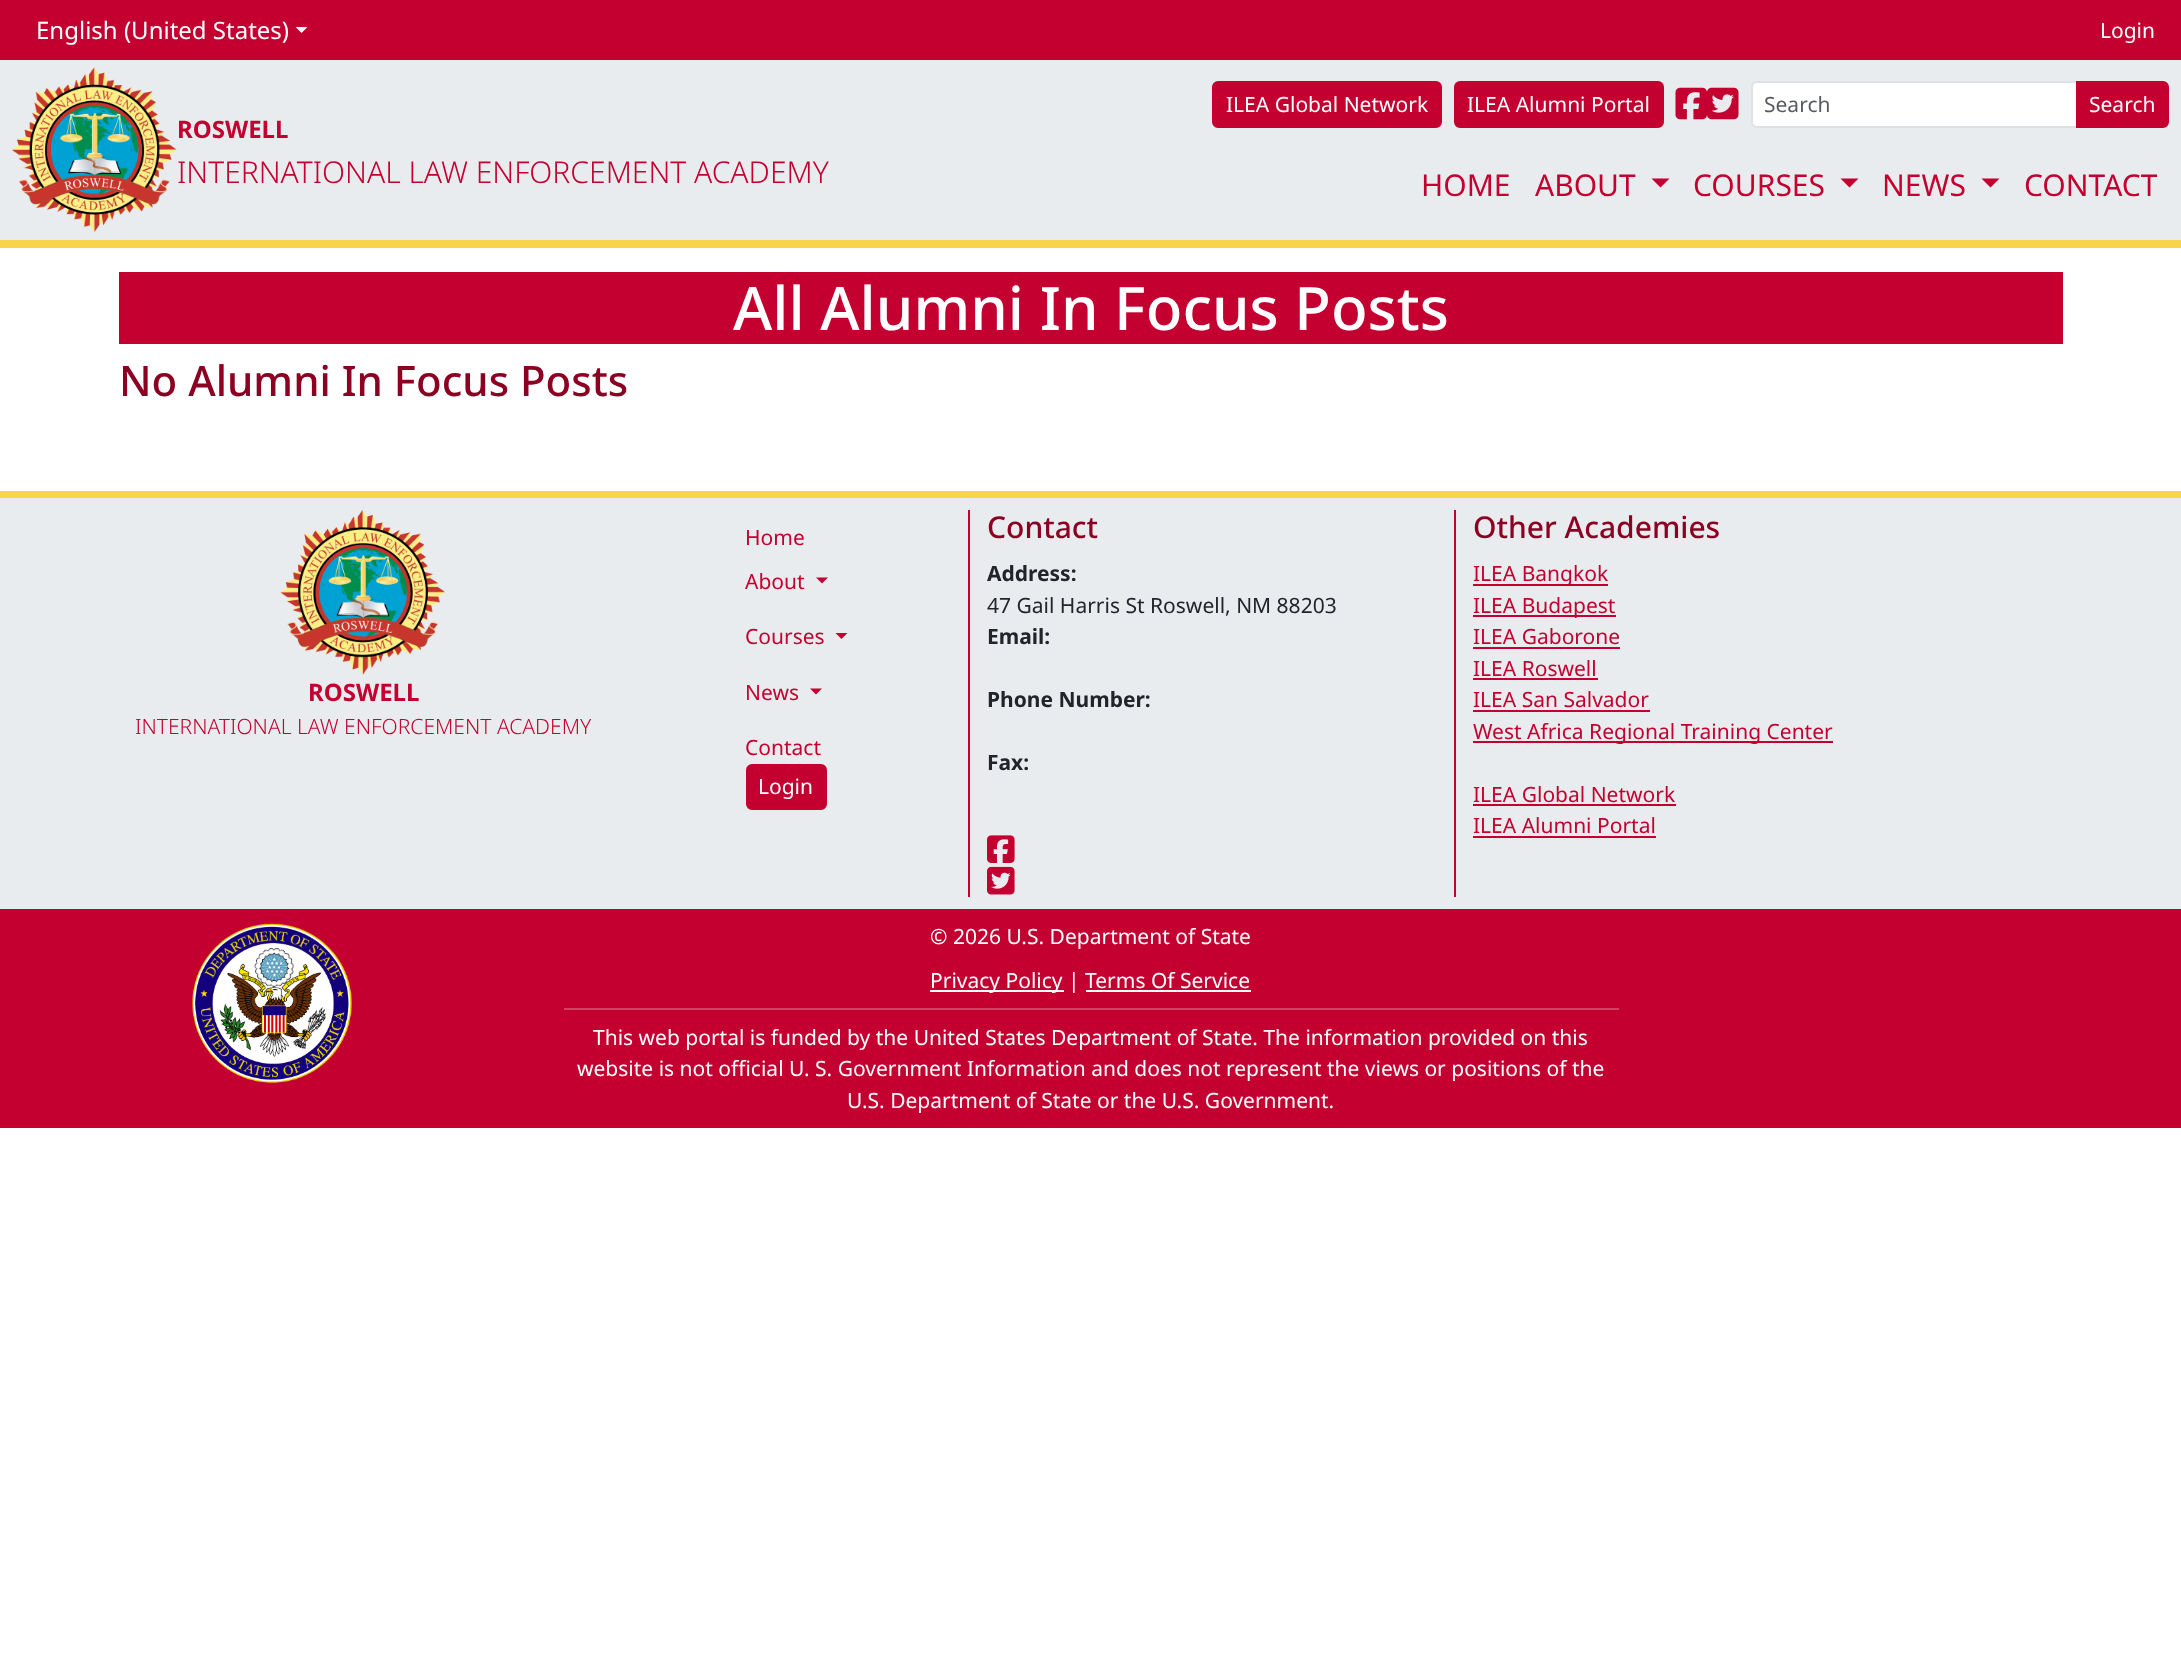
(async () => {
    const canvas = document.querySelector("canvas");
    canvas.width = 2181;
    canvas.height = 1666;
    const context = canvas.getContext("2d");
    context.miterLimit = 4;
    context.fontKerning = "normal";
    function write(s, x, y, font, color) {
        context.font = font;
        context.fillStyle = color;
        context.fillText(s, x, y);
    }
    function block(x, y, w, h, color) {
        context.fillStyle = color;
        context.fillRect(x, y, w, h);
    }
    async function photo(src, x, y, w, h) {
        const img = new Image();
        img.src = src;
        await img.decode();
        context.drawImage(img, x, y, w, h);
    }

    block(0, 0, 2181, 1666, "rgb(255, 255, 255)");
    block(0, 0, 2181, 60, "rgb(195, 0, 47)");
    write("English (United States)", 36, 39, "24px Noto Sans", "rgb(255, 255, 255)");
    context.beginPath();
    context.moveTo(295.5, 27);
    context.lineTo(307.5, 27);
    context.lineTo(301.5, 33);
    context.closePath();
    context.fill();
    write("Login", 2100, 38, "21px Noto Sans", "rgb(255, 255, 255)");
    block(0, 60, 2181, 180, "rgb(233, 236, 239)");
    block(0, 240, 2181, 8, "rgb(248, 212, 76)");
    await photo("media/1.png", 12, 67, 165, 165);
    write("ROSWELL", 177, 138, "bold 24px Noto Sans", "rgb(195, 0, 47)");
    write("INTERNATIONAL LAW ENFORCEMENT ACADEMY", 177, 183, "300 30px Noto Sans", "rgb(195, 0, 47)");
    context.beginPath();
    context.roundRect(1213, 82, 228, 45, 5);
    context.fill();
    context.strokeStyle = "rgb(195, 0, 47)";
    context.lineWidth = 2;
    context.stroke();
    write("ILEA Global Network", 1226, 112, "21px Noto Sans", "rgb(255, 255, 255)");
    context.fillStyle = "rgb(195, 0, 47)";
    context.beginPath();
    context.roundRect(1455, 82, 208, 45, 5);
    context.fill();
    context.stroke();
    write("ILEA Alumni Portal", 1467, 112, "21px Noto Sans", "rgb(255, 255, 255)");
    await photo("media/2.png", 1675, 87, 32, 33);
    await photo("media/3.png", 1707, 87, 32, 33);
    context.beginPath();
    context.roundRect(1752, 82, 325, 45, [5, 0, 0, 5]);
    context.fill();
    context.strokeStyle = "rgb(222, 226, 230)";
    context.stroke();
    write("Search", 1764, 112, "21px Noto Sans", "rgb(89, 92, 95)");
    context.fillStyle = "rgb(195, 0, 47)";
    context.beginPath();
    context.roundRect(2077, 82, 91, 45, [0, 5, 5, 0]);
    context.fill();
    context.strokeStyle = "rgb(195, 0, 47)";
    context.stroke();
    write("Search", 2089, 112, "21px Noto Sans", "rgb(255, 255, 255)");
    write("HOME", 1421, 196, "30px Noto Sans", "rgb(195, 0, 47)");
    write("ABOUT", 1535, 196, "30px Noto Sans", "rgb(195, 0, 47)");
    context.beginPath();
    context.moveTo(1651.5, 178.5);
    context.lineTo(1669.5, 178.5);
    context.lineTo(1660.5, 187.5);
    context.closePath();
    context.fill();
    write("COURSES", 1693, 196, "30px Noto Sans", "rgb(195, 0, 47)");
    context.beginPath();
    context.moveTo(1840.5, 178.5);
    context.lineTo(1858.5, 178.5);
    context.lineTo(1849.5, 187.5);
    context.closePath();
    context.fill();
    write("NEWS", 1882, 196, "30px Noto Sans", "rgb(195, 0, 47)");
    context.beginPath();
    context.moveTo(1981.5, 178.5);
    context.lineTo(1999.5, 178.5);
    context.lineTo(1990.5, 187.5);
    context.closePath();
    context.fill();
    write("CONTACT", 2024, 196, "30px Noto Sans", "rgb(195, 0, 47)");
    block(119, 272, 1944, 72, "rgb(195, 0, 47)");
    write("All Alumni In Focus Posts", 733, 330, "500 60px Noto Sans", "rgb(255, 255, 255)");
    write("No Alumni In Focus Posts", 119, 396, "500 42px Noto Sans", "rgb(140, 0, 34)");
    block(0, 498, 2181, 411, "rgb(233, 236, 239)");
    block(0, 491, 2181, 7, "rgb(248, 212, 76)");
    await photo("media/4.png", 280, 510, 166, 165);
    write("ROSWELL", 308, 701, "bold 24px Noto Sans", "rgb(195, 0, 47)");
    write("INTERNATIONAL LAW ENFORCEMENT ACADEMY", 135, 734, "300 21px Noto Sans", "rgb(195, 0, 47)");
    block(968, 510, 2, 387, "rgb(195, 0, 47)");
    write("Home", 745, 545, "21px Noto Sans", "rgb(195, 0, 47)");
    write("About", 745, 589, "21px Noto Sans", "rgb(195, 0, 47)");
    context.beginPath();
    context.moveTo(816, 577.5);
    context.lineTo(828, 577.5);
    context.lineTo(822, 583.5);
    context.closePath();
    context.fill();
    write("Courses", 745, 644, "21px Noto Sans", "rgb(195, 0, 47)");
    context.beginPath();
    context.moveTo(835.5, 633);
    context.lineTo(847.5, 633);
    context.lineTo(841.5, 639);
    context.closePath();
    context.fill();
    write("News", 745, 700, "21px Noto Sans", "rgb(195, 0, 47)");
    context.beginPath();
    context.moveTo(810, 688.5);
    context.lineTo(822, 688.5);
    context.lineTo(816, 694.5);
    context.closePath();
    context.fill();
    write("Contact", 745, 755, "21px Noto Sans", "rgb(195, 0, 47)");
    context.beginPath();
    context.roundRect(747, 765, 79, 44, 5);
    context.fill();
    context.stroke();
    write("Login", 758, 794, "21px Noto Sans", "rgb(255, 255, 255)");
    write("Contact", 987, 538, "500 30px Noto Sans", "rgb(140, 0, 34)");
    write("Address:", 987, 581, "bold 21px Noto Sans", "rgb(33, 37, 41)");
    write("47 Gail Harris St Roswell, NM 88203", 987, 613, "21px Noto Sans", "rgb(33, 37, 41)");
    write("Email:", 987, 644, "bold 21px Noto Sans", "rgb(33, 37, 41)");
    write("Phone Number:", 987, 707, "bold 21px Noto Sans", "rgb(33, 37, 41)");
    write("Fax:", 987, 770, "bold 21px Noto Sans", "rgb(33, 37, 41)");
    await photo("media/5.png", 987, 835, 28, 28);
    await photo("media/6.png", 987, 866, 28, 29);
    block(1454, 510, 2, 387, "rgb(195, 0, 47)");
    write("Other Academies", 1473, 538, "500 30px Noto Sans", "rgb(140, 0, 34)");
    block(1473, 584, 135, 2, "rgb(195, 0, 47)");
    write("ILEA Bangkok", 1473, 581, "21px Noto Sans", "rgb(195, 0, 47)");
    block(1473, 615, 143, 2, "rgb(195, 0, 47)");
    write("ILEA Budapest", 1473, 613, "21px Noto Sans", "rgb(195, 0, 47)");
    write("ILEA Gaborone", 1473, 644, "21px Noto Sans", "rgb(195, 0, 47)");
    block(1473, 647, 147, 2, "rgb(195, 0, 47)");
    write("ILEA Roswell", 1473, 676, "21px Noto Sans", "rgb(195, 0, 47)");
    block(1473, 678, 125, 2, "rgb(195, 0, 47)");
    write("ILEA San Salvador", 1473, 707, "21px Noto Sans", "rgb(195, 0, 47)");
    block(1473, 710, 177, 2, "rgb(195, 0, 47)");
    block(1473, 741, 360, 2, "rgb(195, 0, 47)");
    write("West Africa Regional Training Center", 1473, 739, "21px Noto Sans", "rgb(195, 0, 47)");
    write("ILEA Global Network", 1473, 802, "21px Noto Sans", "rgb(195, 0, 47)");
    block(1473, 804, 203, 2, "rgb(195, 0, 47)");
    write("ILEA Alumni Portal", 1473, 833, "21px Noto Sans", "rgb(195, 0, 47)");
    block(1473, 836, 183, 2, "rgb(195, 0, 47)");
    block(0, 909, 2181, 219, "rgb(195, 0, 47)");
    await photo("media/7.png", 192, 923, 160, 160);
    write("© 2026 U.S. Department of State", 930, 944, "21px Noto Sans", "rgb(255, 255, 255)");
    block(930, 990, 134, 2, "rgb(255, 255, 255)");
    write("Privacy Policy | Terms Of Service", 930, 988, "21px Noto Sans", "rgb(255, 255, 255)");
    block(1086, 990, 165, 2, "rgb(255, 255, 255)");
    block(564, 1008, 1055, 2, "rgb(210, 64, 99)");
    write("This web portal is funded by the United States Department of State. The information provided on this", 593, 1045, "21px Noto Sans", "rgb(255, 255, 255)");
    write("website is not official U. S. Government Information and does not represent the views or positions of the", 577, 1076, "21px Noto Sans", "rgb(255, 255, 255)");
    write("U.S. Department of State or the U.S. Government.", 847, 1108, "21px Noto Sans", "rgb(255, 255, 255)");
})();
